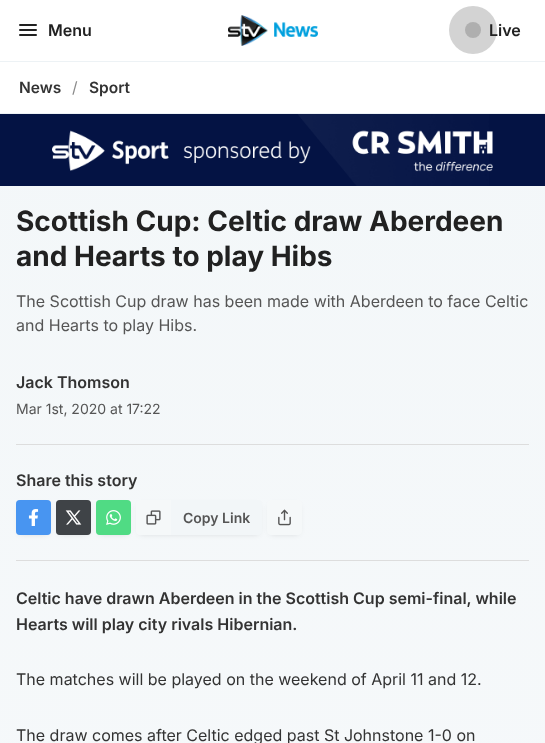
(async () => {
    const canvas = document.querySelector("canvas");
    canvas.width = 545;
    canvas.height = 743;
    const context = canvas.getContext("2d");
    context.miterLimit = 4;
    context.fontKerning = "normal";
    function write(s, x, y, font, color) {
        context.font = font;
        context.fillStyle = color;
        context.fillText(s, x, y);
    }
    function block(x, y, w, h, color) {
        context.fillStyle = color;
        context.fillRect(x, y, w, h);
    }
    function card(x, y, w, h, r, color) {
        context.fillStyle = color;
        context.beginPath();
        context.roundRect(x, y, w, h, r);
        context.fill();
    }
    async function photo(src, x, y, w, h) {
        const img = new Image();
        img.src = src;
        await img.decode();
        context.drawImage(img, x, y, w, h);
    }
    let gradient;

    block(0, 0, 545, 743, "rgb(255, 255, 255)");
    card(19, 29, 18, 2, 1, "rgb(33, 33, 33)");
    card(19, 34, 18, 2, 1, "rgb(33, 33, 33)");
    card(19, 24, 18, 2, 1, "rgb(33, 33, 33)");
    write("Menu", 48, 36, "600 16px Inter", "rgb(33, 33, 33)");
    await photo("media/1.png", 228, 15, 90, 31);
    write("Live", 489, 36, "600 16px Inter", "rgb(33, 33, 33)");
    context.fillStyle = "rgba(33, 33, 33, 0.2)";
    context.beginPath();
    context.arc(473, 30, 24, 0, Math.PI * 2);
    context.fill();
    context.fillStyle = "rgb(175, 175, 175)";
    context.beginPath();
    context.arc(473, 30, 8, 0, Math.PI * 2);
    context.fill();
    gradient = context.createLinearGradient(272, 61, 273, 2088);
    gradient.addColorStop(0, "rgb(243, 247, 249)");
    gradient.addColorStop(1, "rgb(250, 251, 252)");
    context.fillStyle = gradient;
    context.fillRect(0, 186, 545, 557);
    block(0, 61, 545, 1, "rgb(237, 242, 245)");
    block(0, 113, 545, 1, "rgb(237, 242, 245)");
    write("News", 19, 93, "600 15.5px Inter", "rgb(51, 51, 51)");
    write("/", 72, 93, "15.5px Inter", "rgb(138, 138, 138)");
    write("Sport", 89, 93, "600 15.5px Inter", "rgb(51, 51, 51)");
    block(0, 114, 545, 72, "rgb(4, 19, 68)");
    await photo("media/2.png", 52, 114, 441, 72);
    write("Scottish Cup: Celtic draw Aberdeen", 16, 231, "bold 28px Inter", "rgb(33, 33, 33)");
    write("and Hearts to play Hibs", 16, 266, "bold 28px Inter", "rgb(33, 33, 33)");
    write("The Scottish Cup draw has been made with Aberdeen to face Celtic", 16, 307, "16px Inter", "rgb(85, 85, 85)");
    write("and Hearts to play Hibs.", 16, 331, "16px Inter", "rgb(85, 85, 85)");
    write("Jack Thomson", 16, 388, "600 16px Inter", "rgb(51, 51, 51)");
    write("Mar 1st, 2020 at 17:22", 16, 414, "14px Inter", "rgb(85, 85, 85)");
    block(16, 444, 513, 1, "rgb(221, 221, 221)");
    block(16, 560, 513, 1, "rgb(221, 221, 221)");
    write("Share this story", 16, 486, "600 16px Inter", "rgb(51, 51, 51)");
    context.fillStyle = "rgba(0, 0, 0, 0.2)";
    context.filter = "blur(3px)";
    context.beginPath();
    context.rect(20, 506, 27, 27);
    context.fill();
    context.filter = "none";
    card(16, 500, 35, 35, 4, "rgb(27, 123, 238)");
    card(16, 500, 35, 35, 4, "rgba(255, 255, 255, 0.2)");
    await photo("media/3.png", 28, 509, 11, 17);
    context.fillStyle = "rgba(0, 0, 0, 0.2)";
    context.filter = "blur(3px)";
    context.beginPath();
    context.rect(60, 506, 27, 27);
    context.fill();
    context.filter = "none";
    card(56, 500, 35, 35, 4, "rgb(15, 20, 25)");
    card(56, 500, 35, 35, 4, "rgba(255, 255, 255, 0.2)");
    await photo("media/4.png", 65, 510, 17, 15);
    context.fillStyle = "rgba(0, 0, 0, 0.2)";
    context.filter = "blur(3px)";
    context.beginPath();
    context.rect(100, 506, 27, 27);
    context.fill();
    context.filter = "none";
    card(96, 500, 35, 35, 4, "rgb(37, 211, 102)");
    card(96, 500, 35, 35, 4, "rgba(255, 255, 255, 0.2)");
    await photo("media/5.png", 106, 510, 15, 15);
    context.fillStyle = "rgba(0, 0, 0, 0.2)";
    context.filter = "blur(3px)";
    context.beginPath();
    context.rect(140, 506, 118, 27);
    context.fill();
    context.filter = "none";
    card(136, 500, 126, 35, 4, "rgb(242, 246, 248)");
    context.fillStyle = "rgb(245, 248, 249)";
    context.beginPath();
    context.roundRect(136, 500, 35, 35, [4, 0, 0, 4]);
    context.fill();
    await photo("media/6.png", 146, 510, 15, 15);
    write("Copy Link", 183, 523, "600 14px Inter", "rgb(85, 85, 85)");
    context.fillStyle = "rgba(0, 0, 0, 0.2)";
    context.filter = "blur(3px)";
    context.beginPath();
    context.rect(271, 506, 27, 27);
    context.fill();
    context.filter = "none";
    card(267, 500, 35, 35, 4, "rgb(245, 248, 249)");
    await photo("media/7.png", 278, 509, 13, 17);
    write("Celtic have drawn Aberdeen in the Scottish Cup semi-final, while", 16, 604, "600 16px Inter", "rgb(51, 51, 51)");
    write("Hearts will play city rivals Hibernian.", 16, 630, "600 16px Inter", "rgb(51, 51, 51)");
    write("The matches will be played on the weekend of April 11 and 12.", 16, 685, "16px Inter", "rgb(51, 51, 51)");
    write("The draw comes after Celtic edged past St Johnstone 1-0 on", 16, 741, "16px Inter", "rgb(51, 51, 51)");
})();
